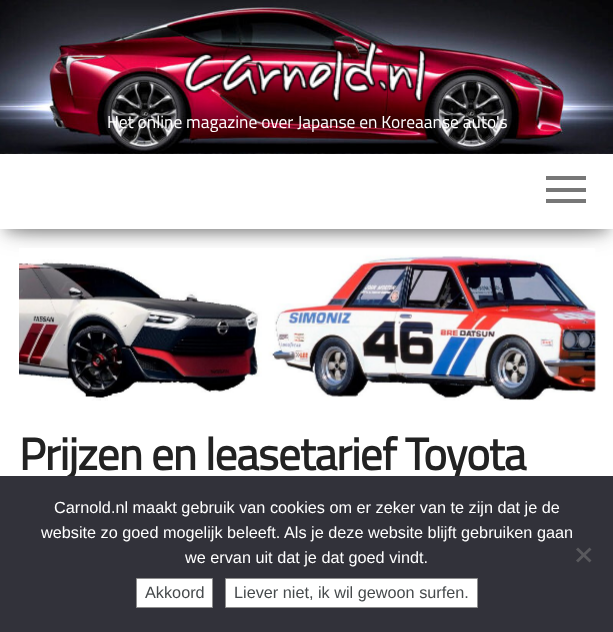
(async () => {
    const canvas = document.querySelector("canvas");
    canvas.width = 613;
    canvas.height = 632;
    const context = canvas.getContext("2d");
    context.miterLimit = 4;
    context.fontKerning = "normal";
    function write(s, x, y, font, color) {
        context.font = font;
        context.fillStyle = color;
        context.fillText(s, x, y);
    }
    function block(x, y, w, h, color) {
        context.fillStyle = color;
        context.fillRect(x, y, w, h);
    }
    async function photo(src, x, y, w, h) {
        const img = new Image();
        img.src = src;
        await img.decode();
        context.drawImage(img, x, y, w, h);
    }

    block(0, 0, 613, 632, "rgb(255, 255, 255)");
    await photo("media/1.png", 0, 153, 613, 1);
    await photo("media/2.png", 0, 0, 613, 154);
    await photo("media/3.png", 183, 40, 244, 63);
    context.fillStyle = "rgba(0, 0, 0, 0.12)";
    context.filter = "blur(12.5px)";
    context.beginPath();
    context.rect(0, 158, 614, 75);
    context.fill();
    context.filter = "none";
    write("Het online magazine over Japanse en Koreaanse auto's", 107, 128, "17.5px Titillium Web", "rgb(255, 255, 255)");
    context.fillStyle = "rgba(0, 0, 0, 0.2)";
    context.filter = "blur(6px)";
    context.beginPath();
    context.rect(6, 170, 602, 63);
    context.fill();
    context.filter = "none";
    context.fillStyle = "rgba(0, 0, 0, 0.42)";
    context.filter = "blur(12.5px)";
    context.beginPath();
    context.rect(15, 181, 584, 45);
    context.fill();
    context.filter = "none";
    block(0, 154, 613, 75, "rgb(255, 255, 255)");
    block(546, 176, 40, 4, "rgb(119, 119, 119)");
    block(546, 188, 40, 4, "rgb(119, 119, 119)");
    block(546, 199, 40, 4, "rgb(119, 119, 119)");
    await photo("media/4.png", 19, 248, 577, 153);
    context.letterSpacing = "-0.9px";
    write("Prijzen en leasetarief Toyota", 19, 470, "bold 45px Titillium Web", "rgb(34, 34, 34)");
    block(0, 476, 613, 156, "rgb(50, 50, 58)");
    context.letterSpacing = "0px";
    write("Carnold.nl maakt gebruik van cookies om er zeker van te zijn dat je de", 54, 513, "16.25px Liberation Sans", "rgb(255, 255, 255)");
    write("website zo goed mogelijk beleeft. Als je deze website blijft gebruiken gaan", 41, 538, "16.25px Liberation Sans", "rgb(255, 255, 255)");
    write("we ervan uit dat je dat goed vindt.", 185, 563, "16.25px Liberation Sans", "rgb(255, 255, 255)");
    context.fillStyle = "rgb(89, 89, 93)";
    context.beginPath();
    context.moveTo(589.5, 547.5);
    context.lineTo(591.5, 549.5);
    context.lineTo(578, 562.5);
    context.lineTo(576, 560.5);
    context.closePath();
    context.fill();
    context.beginPath();
    context.moveTo(576, 549.5);
    context.lineTo(578, 547.5);
    context.lineTo(591.5, 560.5);
    context.lineTo(589.5, 562.5);
    context.closePath();
    context.fill();
    context.fillStyle = "rgb(255, 255, 255)";
    context.beginPath();
    context.rect(136.5, 578.5, 76, 29);
    context.fill();
    context.strokeStyle = "rgb(142, 142, 142)";
    context.stroke();
    write("Akkoord", 145, 598, "16.25px Liberation Sans", "rgb(70, 74, 76)");
    context.fillStyle = "rgb(255, 255, 255)";
    context.beginPath();
    context.rect(225.5, 578.5, 252, 29);
    context.fill();
    context.stroke();
    write("Liever niet, ik wil gewoon surfen.", 234, 598, "16.25px Liberation Sans", "rgb(70, 74, 76)");
})();
